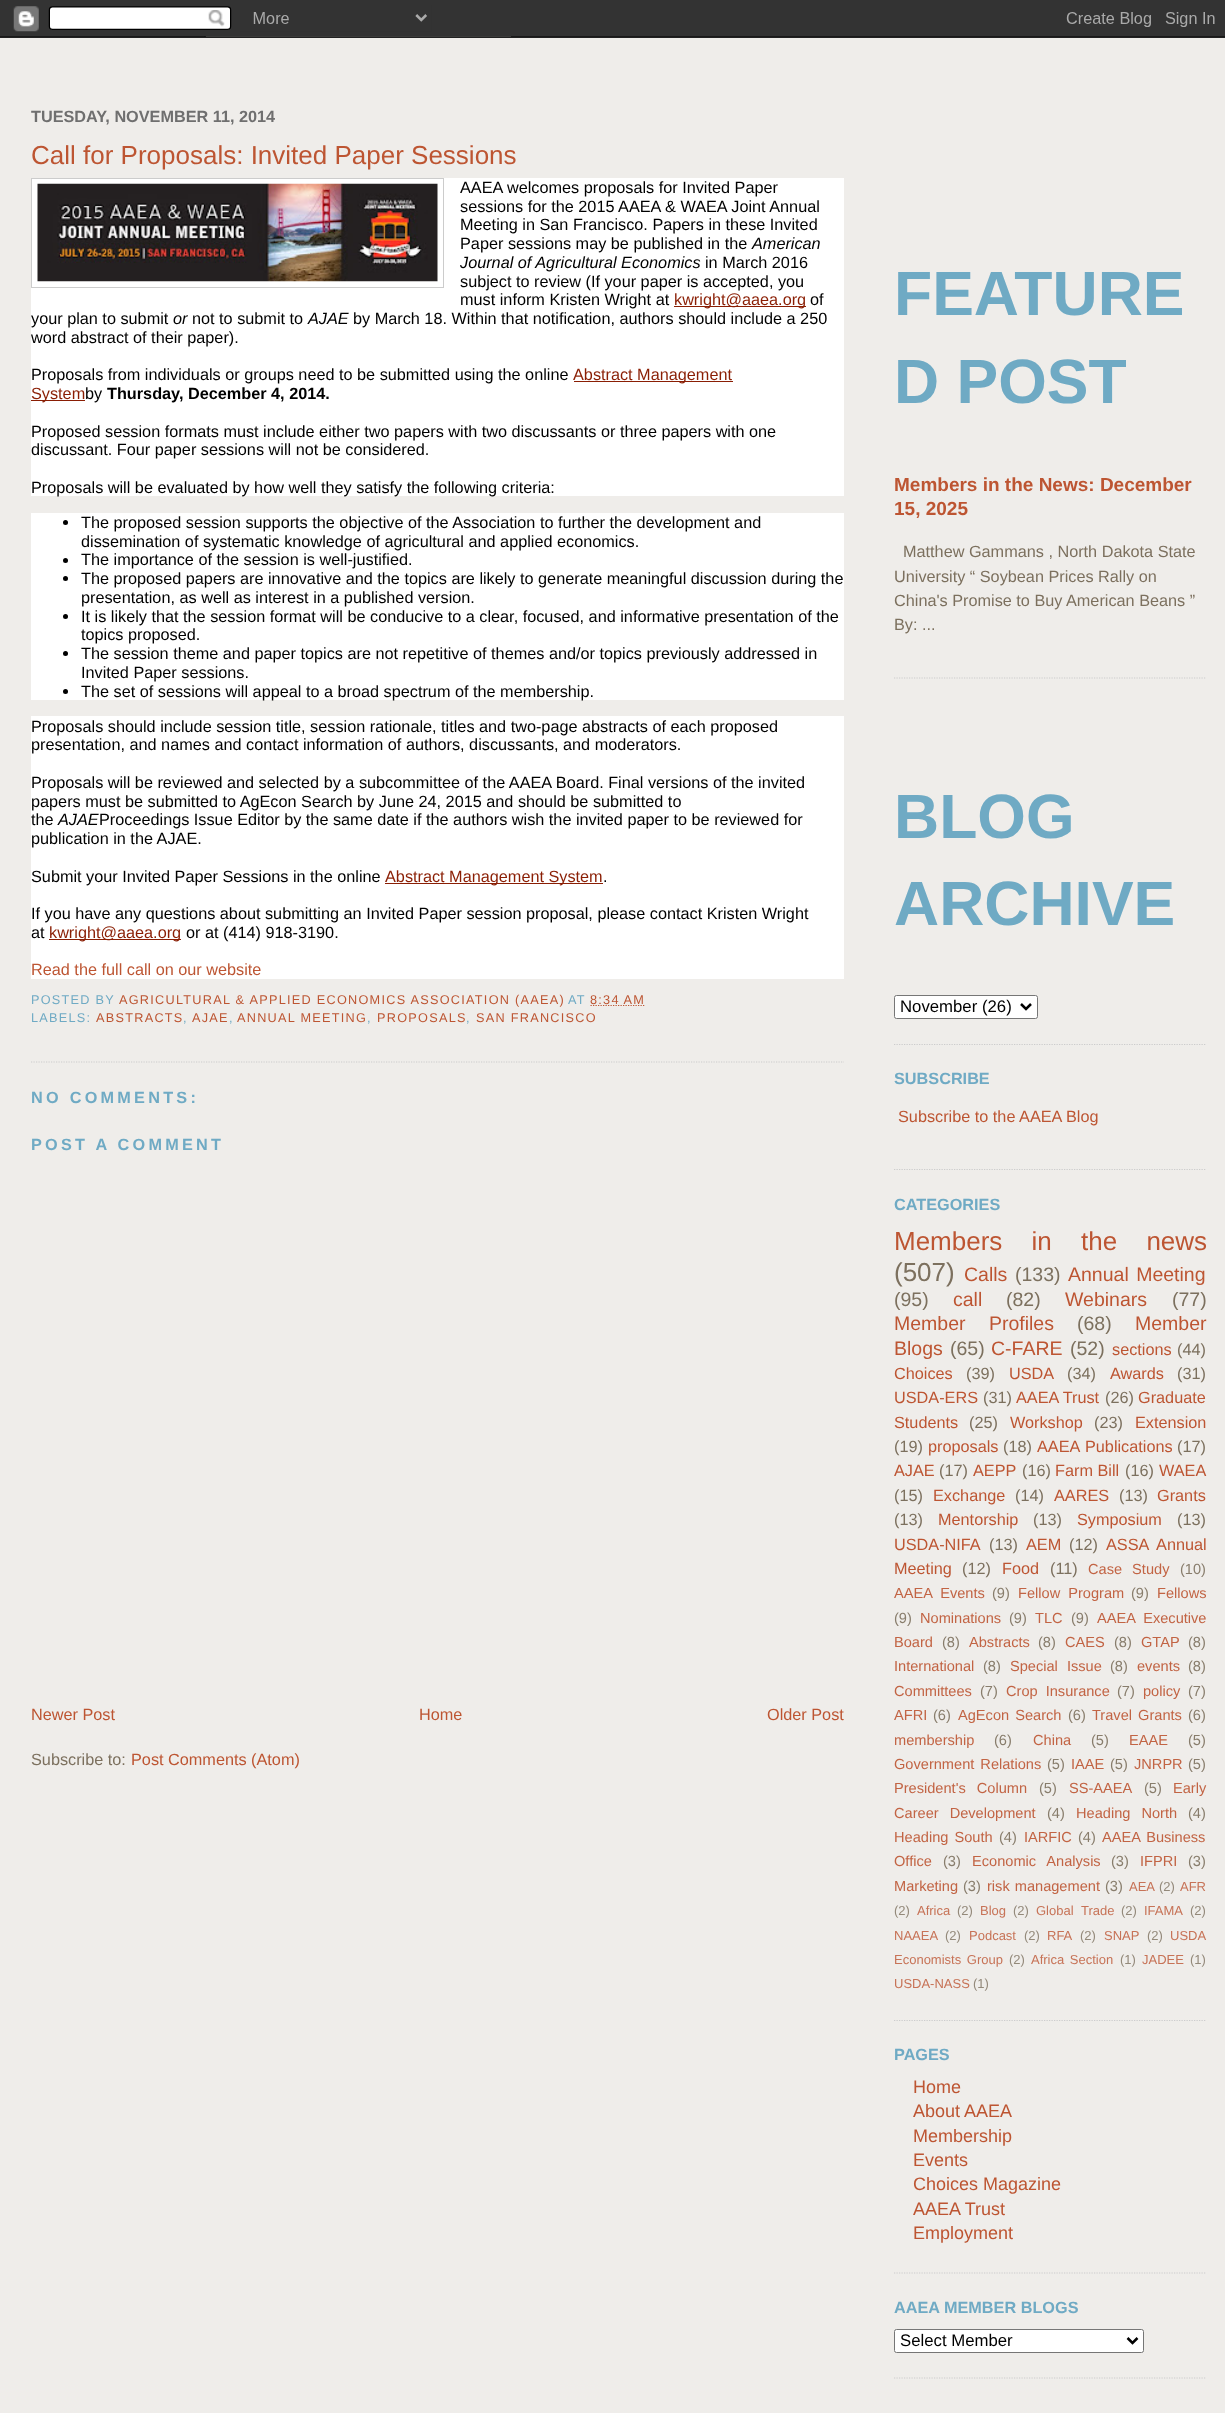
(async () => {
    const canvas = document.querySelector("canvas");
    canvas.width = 1225;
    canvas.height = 2413;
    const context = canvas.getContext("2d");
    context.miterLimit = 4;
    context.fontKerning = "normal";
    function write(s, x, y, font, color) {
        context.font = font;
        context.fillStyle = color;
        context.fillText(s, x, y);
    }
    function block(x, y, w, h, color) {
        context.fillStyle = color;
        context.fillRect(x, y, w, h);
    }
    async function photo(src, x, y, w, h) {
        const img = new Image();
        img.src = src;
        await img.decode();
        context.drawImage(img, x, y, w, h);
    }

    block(0, 0, 1225, 2413, "rgb(239, 237, 234)");
    await photo("media/1.png", 0, 0, 1225, 38);
    write("TUESDAY, NOVEMBER 11, 2014", 31, 122, "bold 16.25px Liberation Sans", "rgb(111, 111, 111)");
    context.beginPath();
    context.moveTo(31, 1062);
    context.lineTo(844, 1062);
    context.strokeStyle = "rgb(204, 204, 204)";
    context.lineWidth = 1.2;
    context.setLineDash([1.25, 1.25]);
    context.stroke();
    write("Call for Proposals: Invited Paper Sessions", 31, 164, "26px Liberation Sans", "rgb(189, 85, 50)");
    block(31, 178, 813, 318, "rgb(255, 255, 255)");
    context.lineWidth = 1;
    context.setLineDash([]);
    context.strokeRect(31.5, 178.5, 412, 109);
    await photo("media/2.png", 37, 183, 401, 99);
    write("AAEA welcomes proposals for Invited Paper", 460, 193, "16.25px Liberation Sans", "rgb(0, 0, 0)");
    write("sessions for the 2015 AAEA & WAEA Joint Annual", 460, 212, "16.25px Liberation Sans", "rgb(0, 0, 0)");
    write("Meeting in San Francisco. Papers in these Invited", 460, 230, "16.25px Liberation Sans", "rgb(0, 0, 0)");
    write("Paper sessions may be published in the", 460, 249, "16.25px Liberation Sans", "rgb(0, 0, 0)");
    write("American", 752, 249, "italic 16.25px Liberation Sans", "rgb(0, 0, 0)");
    write("Journal of Agricultural Economics", 460, 268, "italic 16.25px Liberation Sans", "rgb(0, 0, 0)");
    write("in March 2016", 705, 268, "16.25px Liberation Sans", "rgb(0, 0, 0)");
    write("subject to review (If your paper is accepted, you", 460, 287, "16.25px Liberation Sans", "rgb(0, 0, 0)");
    write("must inform Kristen Wright at", 460, 305, "16.25px Liberation Sans", "rgb(0, 0, 0)");
    block(674, 306, 132, 1, "rgb(138, 30, 4)");
    write("kwright@aaea.org", 674, 305, "16.25px Liberation Sans", "rgb(138, 30, 4)");
    write("of", 810, 305, "16.25px Liberation Sans", "rgb(0, 0, 0)");
    write("your plan to submit", 31, 324, "16.25px Liberation Sans", "rgb(0, 0, 0)");
    write("or", 173, 324, "italic 16.25px Liberation Sans", "rgb(0, 0, 0)");
    write("not to submit to", 192, 324, "16.25px Liberation Sans", "rgb(0, 0, 0)");
    write("AJAE", 308, 324, "italic 16.25px Liberation Sans", "rgb(0, 0, 0)");
    write("by March 18. Within that notification, authors should include a 250", 353, 324, "16.25px Liberation Sans", "rgb(0, 0, 0)");
    write("word abstract of their paper).", 31, 343, "16.25px Liberation Sans", "rgb(0, 0, 0)");
    write("Proposals from individuals or groups need to be submitted using the online", 31, 380, "16.25px Liberation Sans", "rgb(0, 0, 0)");
    block(574, 381, 159, 1, "rgb(138, 30, 4)");
    write("Abstract Management", 573, 380, "16.25px Liberation Sans", "rgb(138, 30, 4)");
    block(31, 400, 54, 1, "rgb(138, 30, 4)");
    write("System", 31, 399, "16.25px Liberation Sans", "rgb(138, 30, 4)");
    write("by", 85, 399, "16.25px Liberation Sans", "rgb(0, 0, 0)");
    write("Thursday, December 4, 2014.", 107, 399, "bold 16.25px Liberation Sans", "rgb(0, 0, 0)");
    write("Proposed session formats must include either two papers with two discussants or three papers with one", 31, 437, "16.25px Liberation Sans", "rgb(0, 0, 0)");
    write("discussant. Four paper sessions will not be considered.", 31, 455, "16.25px Liberation Sans", "rgb(0, 0, 0)");
    write("Proposals will be evaluated by how well they satisfy the following criteria:", 31, 493, "16.25px Liberation Sans", "rgb(0, 0, 0)");
    block(31, 513, 813, 187, "rgb(255, 255, 255)");
    context.fillStyle = "rgb(0, 0, 0)";
    context.beginPath();
    context.arc(65.5, 522.5, 2.5, 0, Math.PI * 2);
    context.fill();
    write("The proposed session supports the objective of the Association to further the development and", 81, 528, "16.25px Liberation Sans", "rgb(0, 0, 0)");
    write("dissemination of systematic knowledge of agricultural and applied economics.", 81, 547, "16.25px Liberation Sans", "rgb(0, 0, 0)");
    context.beginPath();
    context.arc(65.5, 560.5, 2.5, 0, Math.PI * 2);
    context.fill();
    write("The importance of the session is well-justified.", 81, 565, "16.25px Liberation Sans", "rgb(0, 0, 0)");
    context.beginPath();
    context.arc(65.5, 578.5, 2.5, 0, Math.PI * 2);
    context.fill();
    write("The proposed papers are innovative and the topics are likely to generate meaningful discussion during the", 81, 584, "16.25px Liberation Sans", "rgb(0, 0, 0)");
    write("presentation, as well as interest in a published version.", 81, 603, "16.25px Liberation Sans", "rgb(0, 0, 0)");
    context.beginPath();
    context.arc(65.5, 616.5, 2.5, 0, Math.PI * 2);
    context.fill();
    write("It is likely that the session format will be conducive to a clear, focused, and informative presentation of the", 81, 622, "16.25px Liberation Sans", "rgb(0, 0, 0)");
    write("topics proposed.", 81, 640, "16.25px Liberation Sans", "rgb(0, 0, 0)");
    context.beginPath();
    context.arc(65.5, 653.5, 2.5, 0, Math.PI * 2);
    context.fill();
    write("The session theme and paper topics are not repetitive of themes and/or topics previously addressed in", 81, 659, "16.25px Liberation Sans", "rgb(0, 0, 0)");
    write("Invited Paper sessions.", 81, 678, "16.25px Liberation Sans", "rgb(0, 0, 0)");
    context.beginPath();
    context.arc(65.5, 691.5, 2.5, 0, Math.PI * 2);
    context.fill();
    write("The set of sessions will appeal to a broad spectrum of the membership.", 81, 697, "16.25px Liberation Sans", "rgb(0, 0, 0)");
    block(31, 716, 813, 263, "rgb(255, 255, 255)");
    write("Proposals should include session title, session rationale, titles and two-page abstracts of each proposed", 31, 732, "16.25px Liberation Sans", "rgb(0, 0, 0)");
    write("presentation, and names and contact information of authors, discussants, and moderators.", 31, 750, "16.25px Liberation Sans", "rgb(0, 0, 0)");
    write("Proposals will be reviewed and selected by a subcommittee of the AAEA Board. Final versions of the invited", 31, 788, "16.25px Liberation Sans", "rgb(0, 0, 0)");
    write("papers must be submitted to AgEcon Search by June 24, 2015 and should be submitted to", 31, 807, "16.25px Liberation Sans", "rgb(0, 0, 0)");
    write("the", 31, 825, "16.25px Liberation Sans", "rgb(0, 0, 0)");
    write("AJAE", 58, 825, "italic 16.25px Liberation Sans", "rgb(0, 0, 0)");
    write("Proceedings Issue Editor by the same date if the authors wish the invited paper to be reviewed for", 99, 825, "16.25px Liberation Sans", "rgb(0, 0, 0)");
    write("publication in the AJAE.", 31, 844, "16.25px Liberation Sans", "rgb(0, 0, 0)");
    write("Submit your Invited Paper Sessions in the online", 31, 882, "16.25px Liberation Sans", "rgb(0, 0, 0)");
    block(385, 883, 218, 1, "rgb(138, 30, 4)");
    write("Abstract Management System", 385, 882, "16.25px Liberation Sans", "rgb(138, 30, 4)");
    write(".", 603, 882, "16.25px Liberation Sans", "rgb(0, 0, 0)");
    write("If you have any questions about submitting an Invited Paper session proposal, please contact Kristen Wright", 31, 919, "16.25px Liberation Sans", "rgb(0, 0, 0)");
    write("at", 31, 938, "16.25px Liberation Sans", "rgb(0, 0, 0)");
    block(49, 939, 132, 1, "rgb(138, 30, 4)");
    write("kwright@aaea.org", 49, 938, "16.25px Liberation Sans", "rgb(138, 30, 4)");
    write("or at (414) 918-3190.", 186, 938, "16.25px Liberation Sans", "rgb(0, 0, 0)");
    write("Read the full call on our website", 31, 975, "16.25px Liberation Sans", "rgb(189, 85, 50)");
    context.letterSpacing = "1.27px";
    write("POSTED BY", 31, 1004, "12.7px Liberation Sans", "rgb(111, 170, 196)");
    write("AGRICULTURAL & APPLIED ECONOMICS ASSOCIATION (AAEA)", 119, 1004, "12.7px Liberation Sans", "rgb(189, 85, 50)");
    write("AT", 568, 1004, "12.7px Liberation Sans", "rgb(111, 170, 196)");
    context.beginPath();
    context.moveTo(590.5, 1005.5);
    context.lineTo(645.5, 1005.5);
    context.strokeStyle = "rgb(189, 85, 50)";
    context.lineWidth = 1.2;
    context.setLineDash([1.25, 1.25]);
    context.stroke();
    write("8:34 AM", 590, 1004, "12.7px Liberation Sans", "rgb(189, 85, 50)");
    write("LABELS:", 31, 1022, "12.7px Liberation Sans", "rgb(111, 170, 196)");
    write("ABSTRACTS", 96, 1022, "12.7px Liberation Sans", "rgb(189, 85, 50)");
    write(",", 183, 1022, "12.7px Liberation Sans", "rgb(111, 170, 196)");
    write("AJAE", 192, 1022, "12.7px Liberation Sans", "rgb(189, 85, 50)");
    write(",", 229, 1022, "12.7px Liberation Sans", "rgb(111, 170, 196)");
    write("ANNUAL MEETING", 237, 1022, "12.7px Liberation Sans", "rgb(189, 85, 50)");
    write(",", 367, 1022, "12.7px Liberation Sans", "rgb(111, 170, 196)");
    write("PROPOSALS", 377, 1022, "12.7px Liberation Sans", "rgb(189, 85, 50)");
    write(",", 466, 1022, "12.7px Liberation Sans", "rgb(111, 170, 196)");
    write("SAN FRANCISCO", 476, 1022, "12.7px Liberation Sans", "rgb(189, 85, 50)");
    context.letterSpacing = "3.25px";
    write("NO COMMENTS:", 31, 1103, "bold 16.25px Liberation Sans", "rgb(111, 170, 196)");
    write("POST A COMMENT", 31, 1150, "bold 16.25px Liberation Sans", "rgb(111, 170, 196)");
    context.letterSpacing = "0px";
    write("Newer Post", 31, 1720, "16.25px Liberation Sans", "rgb(189, 85, 50)");
    write("Home", 419, 1720, "16.25px Liberation Sans", "rgb(189, 85, 50)");
    write("Older Post", 767, 1720, "16.25px Liberation Sans", "rgb(189, 85, 50)");
    write("Subscribe to:", 31, 1765, "16.25px Liberation Sans", "rgb(124, 112, 94)");
    write("Post Comments (Atom)", 131, 1765, "16.25px Liberation Sans", "rgb(189, 85, 50)");
    context.beginPath();
    context.moveTo(894, 678);
    context.lineTo(1206, 678);
    context.strokeStyle = "rgb(204, 204, 204)";
    context.stroke();
    write("FEATURE", 894, 315, "bold 62.5px Liberation Sans", "rgb(111, 170, 196)");
    write("D POST", 894, 403, "bold 62.5px Liberation Sans", "rgb(111, 170, 196)");
    write("Members in the News: December", 894, 491, "bold 19px Liberation Sans", "rgb(189, 85, 50)");
    write("15, 2025", 894, 515, "bold 19px Liberation Sans", "rgb(189, 85, 50)");
    write("Matthew Gammans , North Dakota State", 903, 557, "16.25px Liberation Sans", "rgb(124, 112, 94)");
    write("University “ Soybean Prices Rally on", 894, 582, "16.25px Liberation Sans", "rgb(124, 112, 94)");
    write("China's Promise to Buy American Beans ”", 894, 606, "16.25px Liberation Sans", "rgb(124, 112, 94)");
    write("By: ...", 894, 630, "16.25px Liberation Sans", "rgb(124, 112, 94)");
    context.beginPath();
    context.moveTo(894, 1044.5);
    context.lineTo(1206, 1044.5);
    context.stroke();
    write("BLOG", 894, 838, "bold 62.5px Liberation Sans", "rgb(111, 170, 196)");
    write("ARCHIVE", 894, 925, "bold 62.5px Liberation Sans", "rgb(111, 170, 196)");
    context.fillStyle = "rgb(255, 255, 255)";
    context.beginPath();
    context.roundRect(894.5, 995.5, 143, 23, 2);
    context.fill();
    context.strokeStyle = "rgb(118, 118, 118)";
    context.lineWidth = 1;
    context.setLineDash([]);
    context.stroke();
    context.beginPath();
    context.moveTo(1021, 1004);
    context.lineTo(1026, 1009);
    context.lineTo(1031, 1004);
    context.strokeStyle = "rgb(0, 0, 0)";
    context.lineWidth = 2.5;
    context.stroke();
    write("November (26)", 900, 1012, "16.75px Liberation Sans", "rgb(0, 0, 0)");
    context.beginPath();
    context.moveTo(894, 1169.5);
    context.lineTo(1206, 1169.5);
    context.strokeStyle = "rgb(204, 204, 204)";
    context.lineWidth = 1.2;
    context.setLineDash([1.25, 1.25]);
    context.stroke();
    write("SUBSCRIBE", 894, 1084, "bold 16.25px Liberation Sans", "rgb(111, 170, 196)");
    write("Subscribe to the AAEA Blog", 898, 1122, "16.25px Liberation Sans", "rgb(189, 85, 50)");
    context.beginPath();
    context.moveTo(894, 2020.5);
    context.lineTo(1206, 2020.5);
    context.stroke();
    write("CATEGORIES", 894, 1210, "bold 16.25px Liberation Sans", "rgb(111, 170, 196)");
    context.wordSpacing = "22px";
    write("Members in the news", 894, 1250, "26px Liberation Sans", "rgb(189, 85, 50)");
    context.wordSpacing = "0px";
    write("(507)", 894, 1281, "26px Liberation Sans", "rgb(124, 112, 94)");
    write("Calls", 964, 1281, "19.5px Liberation Sans", "rgb(189, 85, 50)");
    write("(133)", 1015, 1281, "19.5px Liberation Sans", "rgb(124, 112, 94)");
    context.wordSpacing = "2px";
    write("Annual Meeting", 1068, 1281, "19.5px Liberation Sans", "rgb(189, 85, 50)");
    context.wordSpacing = "0px";
    write("(95)", 894, 1306, "19.5px Liberation Sans", "rgb(124, 112, 94)");
    write("call", 953, 1306, "19.5px Liberation Sans", "rgb(189, 85, 50)");
    write("(82)", 1006, 1306, "19.5px Liberation Sans", "rgb(124, 112, 94)");
    write("Webinars", 1065, 1306, "19.5px Liberation Sans", "rgb(189, 85, 50)");
    write("(77)", 1172, 1306, "19.5px Liberation Sans", "rgb(124, 112, 94)");
    context.wordSpacing = "18px";
    write("Member Profiles", 894, 1330, "19.5px Liberation Sans", "rgb(189, 85, 50)");
    context.wordSpacing = "0px";
    write("(68)", 1077, 1330, "19.5px Liberation Sans", "rgb(124, 112, 94)");
    write("Member", 1135, 1330, "19.5px Liberation Sans", "rgb(189, 85, 50)");
    write("Blogs", 894, 1355, "19.5px Liberation Sans", "rgb(189, 85, 50)");
    write("(65)", 950, 1355, "19.5px Liberation Sans", "rgb(124, 112, 94)");
    write("C-FARE", 991, 1355, "19.5px Liberation Sans", "rgb(189, 85, 50)");
    write("(52)", 1070, 1355, "19.5px Liberation Sans", "rgb(124, 112, 94)");
    write("sections", 1112, 1355, "16.25px Liberation Sans", "rgb(189, 85, 50)");
    write("(44)", 1177, 1355, "16.25px Liberation Sans", "rgb(124, 112, 94)");
    write("Choices", 894, 1379, "16.25px Liberation Sans", "rgb(189, 85, 50)");
    write("(39)", 966, 1379, "16.25px Liberation Sans", "rgb(124, 112, 94)");
    write("USDA", 1009, 1379, "16.25px Liberation Sans", "rgb(189, 85, 50)");
    write("(34)", 1067, 1379, "16.25px Liberation Sans", "rgb(124, 112, 94)");
    write("Awards", 1110, 1379, "16.25px Liberation Sans", "rgb(189, 85, 50)");
    write("(31)", 1177, 1379, "16.25px Liberation Sans", "rgb(124, 112, 94)");
    write("USDA-ERS", 894, 1403, "16.25px Liberation Sans", "rgb(189, 85, 50)");
    write("(31)", 983, 1403, "16.25px Liberation Sans", "rgb(124, 112, 94)");
    write("AAEA Trust", 1016, 1403, "16.25px Liberation Sans", "rgb(189, 85, 50)");
    write("(26)", 1105, 1403, "16.25px Liberation Sans", "rgb(124, 112, 94)");
    write("Graduate", 1138, 1403, "16.25px Liberation Sans", "rgb(189, 85, 50)");
    write("Students", 894, 1428, "16.25px Liberation Sans", "rgb(189, 85, 50)");
    write("(25)", 969, 1428, "16.25px Liberation Sans", "rgb(124, 112, 94)");
    write("Workshop", 1010, 1428, "16.25px Liberation Sans", "rgb(189, 85, 50)");
    write("(23)", 1094, 1428, "16.25px Liberation Sans", "rgb(124, 112, 94)");
    write("Extension", 1135, 1428, "16.25px Liberation Sans", "rgb(189, 85, 50)");
    write("(19)", 894, 1452, "16.25px Liberation Sans", "rgb(124, 112, 94)");
    write("proposals", 928, 1452, "16.25px Liberation Sans", "rgb(189, 85, 50)");
    write("(18)", 1003, 1452, "16.25px Liberation Sans", "rgb(124, 112, 94)");
    context.wordSpacing = "1px";
    write("AAEA Publications", 1037, 1452, "16.25px Liberation Sans", "rgb(189, 85, 50)");
    context.wordSpacing = "0px";
    write("(17)", 1177, 1452, "16.25px Liberation Sans", "rgb(124, 112, 94)");
    write("AJAE", 894, 1476, "16.25px Liberation Sans", "rgb(189, 85, 50)");
    write("(17)", 939, 1476, "16.25px Liberation Sans", "rgb(124, 112, 94)");
    write("AEPP", 973, 1476, "16.25px Liberation Sans", "rgb(189, 85, 50)");
    write("(16)", 1022, 1476, "16.25px Liberation Sans", "rgb(124, 112, 94)");
    write("Farm Bill", 1055, 1476, "16.25px Liberation Sans", "rgb(189, 85, 50)");
    write("(16)", 1125, 1476, "16.25px Liberation Sans", "rgb(124, 112, 94)");
    write("WAEA", 1159, 1476, "16.25px Liberation Sans", "rgb(189, 85, 50)");
    write("(15)", 894, 1501, "16.25px Liberation Sans", "rgb(124, 112, 94)");
    write("Exchange", 933, 1501, "16.25px Liberation Sans", "rgb(189, 85, 50)");
    write("(14)", 1015, 1501, "16.25px Liberation Sans", "rgb(124, 112, 94)");
    write("AARES", 1054, 1501, "16.25px Liberation Sans", "rgb(189, 85, 50)");
    write("(13)", 1119, 1501, "16.25px Liberation Sans", "rgb(124, 112, 94)");
    write("Grants", 1157, 1501, "16.25px Liberation Sans", "rgb(189, 85, 50)");
    write("(13)", 894, 1525, "16.25px Liberation Sans", "rgb(124, 112, 94)");
    write("Mentorship", 938, 1525, "16.25px Liberation Sans", "rgb(189, 85, 50)");
    write("(13)", 1033, 1525, "16.25px Liberation Sans", "rgb(124, 112, 94)");
    write("Symposium", 1077, 1525, "16.25px Liberation Sans", "rgb(189, 85, 50)");
    write("(13)", 1177, 1525, "16.25px Liberation Sans", "rgb(124, 112, 94)");
    write("USDA-NIFA", 894, 1550, "16.25px Liberation Sans", "rgb(189, 85, 50)");
    write("(13)", 989, 1550, "16.25px Liberation Sans", "rgb(124, 112, 94)");
    write("AEM", 1026, 1550, "16.25px Liberation Sans", "rgb(189, 85, 50)");
    write("(12)", 1069, 1550, "16.25px Liberation Sans", "rgb(124, 112, 94)");
    context.wordSpacing = "4px";
    write("ASSA Annual", 1106, 1550, "16.25px Liberation Sans", "rgb(189, 85, 50)");
    context.wordSpacing = "0px";
    write("Meeting", 894, 1574, "16.25px Liberation Sans", "rgb(189, 85, 50)");
    write("(12)", 962, 1574, "16.25px Liberation Sans", "rgb(124, 112, 94)");
    write("Food", 1002, 1574, "16.25px Liberation Sans", "rgb(189, 85, 50)");
    write("(11)", 1050, 1574, "16.25px Liberation Sans", "rgb(124, 112, 94)");
    context.wordSpacing = "6px";
    write("Case Study", 1088, 1574, "14.6px Liberation Sans", "rgb(194, 100, 68)");
    context.wordSpacing = "0px";
    write("(10)", 1180, 1574, "14.6px Liberation Sans", "rgb(136, 125, 108)");
    context.wordSpacing = "4px";
    write("AAEA Events", 894, 1598, "14.6px Liberation Sans", "rgb(194, 100, 68)");
    context.wordSpacing = "0px";
    write("(9)", 992, 1598, "14.6px Liberation Sans", "rgb(136, 125, 108)");
    context.wordSpacing = "4px";
    write("Fellow Program", 1018, 1598, "14.6px Liberation Sans", "rgb(194, 100, 68)");
    context.wordSpacing = "0px";
    write("(9)", 1131, 1598, "14.6px Liberation Sans", "rgb(136, 125, 108)");
    write("Fellows", 1157, 1598, "14.6px Liberation Sans", "rgb(194, 100, 68)");
    write("(9)", 894, 1623, "14.6px Liberation Sans", "rgb(136, 125, 108)");
    write("Nominations", 920, 1623, "14.6px Liberation Sans", "rgb(194, 100, 68)");
    write("(9)", 1009, 1623, "14.6px Liberation Sans", "rgb(136, 125, 108)");
    write("TLC", 1035, 1623, "14.6px Liberation Sans", "rgb(194, 100, 68)");
    write("(9)", 1071, 1623, "14.6px Liberation Sans", "rgb(136, 125, 108)");
    context.wordSpacing = "4px";
    write("AAEA Executive", 1097, 1623, "14.6px Liberation Sans", "rgb(194, 100, 68)");
    context.wordSpacing = "0px";
    write("Board", 894, 1647, "14.6px Liberation Sans", "rgb(194, 100, 68)");
    write("(8)", 942, 1647, "14.6px Liberation Sans", "rgb(136, 125, 108)");
    write("Abstracts", 969, 1647, "14.6px Liberation Sans", "rgb(194, 100, 68)");
    write("(8)", 1038, 1647, "14.6px Liberation Sans", "rgb(136, 125, 108)");
    write("CAES", 1065, 1647, "14.6px Liberation Sans", "rgb(194, 100, 68)");
    write("(8)", 1114, 1647, "14.6px Liberation Sans", "rgb(136, 125, 108)");
    write("GTAP", 1141, 1647, "14.6px Liberation Sans", "rgb(194, 100, 68)");
    write("(8)", 1188, 1647, "14.6px Liberation Sans", "rgb(136, 125, 108)");
    write("International", 894, 1671, "14.6px Liberation Sans", "rgb(194, 100, 68)");
    write("(8)", 983, 1671, "14.6px Liberation Sans", "rgb(136, 125, 108)");
    context.wordSpacing = "5px";
    write("Special Issue", 1010, 1671, "14.6px Liberation Sans", "rgb(194, 100, 68)");
    context.wordSpacing = "0px";
    write("(8)", 1110, 1671, "14.6px Liberation Sans", "rgb(136, 125, 108)");
    write("events", 1137, 1671, "14.6px Liberation Sans", "rgb(194, 100, 68)");
    write("(8)", 1188, 1671, "14.6px Liberation Sans", "rgb(136, 125, 108)");
    write("Committees", 894, 1696, "14.6px Liberation Sans", "rgb(194, 100, 68)");
    write("(7)", 980, 1696, "14.6px Liberation Sans", "rgb(136, 125, 108)");
    context.wordSpacing = "4px";
    write("Crop Insurance", 1006, 1696, "14.6px Liberation Sans", "rgb(194, 100, 68)");
    context.wordSpacing = "0px";
    write("(7)", 1117, 1696, "14.6px Liberation Sans", "rgb(136, 125, 108)");
    write("policy", 1143, 1696, "14.6px Liberation Sans", "rgb(194, 100, 68)");
    write("(7)", 1188, 1696, "14.6px Liberation Sans", "rgb(136, 125, 108)");
    write("AFRI", 894, 1720, "14.6px Liberation Sans", "rgb(194, 100, 68)");
    write("(6)", 933, 1720, "14.6px Liberation Sans", "rgb(136, 125, 108)");
    context.wordSpacing = "2px";
    write("AgEcon Search", 958, 1720, "14.6px Liberation Sans", "rgb(194, 100, 68)");
    context.wordSpacing = "0px";
    write("(6)", 1068, 1720, "14.6px Liberation Sans", "rgb(136, 125, 108)");
    context.wordSpacing = "2px";
    write("Travel Grants", 1092, 1720, "14.6px Liberation Sans", "rgb(194, 100, 68)");
    context.wordSpacing = "0px";
    write("(6)", 1188, 1720, "14.6px Liberation Sans", "rgb(136, 125, 108)");
    write("membership", 894, 1745, "14.6px Liberation Sans", "rgb(194, 100, 68)");
    write("(6)", 994, 1745, "14.6px Liberation Sans", "rgb(136, 125, 108)");
    write("China", 1033, 1745, "14.6px Liberation Sans", "rgb(194, 100, 68)");
    write("(5)", 1091, 1745, "14.6px Liberation Sans", "rgb(136, 125, 108)");
    write("EAAE", 1129, 1745, "14.6px Liberation Sans", "rgb(194, 100, 68)");
    write("(5)", 1188, 1745, "14.6px Liberation Sans", "rgb(136, 125, 108)");
    context.wordSpacing = "2px";
    write("Government Relations", 894, 1769, "14.6px Liberation Sans", "rgb(194, 100, 68)");
    context.wordSpacing = "0px";
    write("(5)", 1047, 1769, "14.6px Liberation Sans", "rgb(136, 125, 108)");
    write("IAAE", 1071, 1769, "14.6px Liberation Sans", "rgb(194, 100, 68)");
    write("(5)", 1110, 1769, "14.6px Liberation Sans", "rgb(136, 125, 108)");
    write("JNRPR", 1134, 1769, "14.6px Liberation Sans", "rgb(194, 100, 68)");
    write("(5)", 1188, 1769, "14.6px Liberation Sans", "rgb(136, 125, 108)");
    context.wordSpacing = "7px";
    write("President's Column", 894, 1793, "14.6px Liberation Sans", "rgb(194, 100, 68)");
    context.wordSpacing = "0px";
    write("(5)", 1039, 1793, "14.6px Liberation Sans", "rgb(136, 125, 108)");
    write("SS-AAEA", 1069, 1793, "14.6px Liberation Sans", "rgb(194, 100, 68)");
    write("(5)", 1144, 1793, "14.6px Liberation Sans", "rgb(136, 125, 108)");
    write("Early", 1173, 1793, "14.6px Liberation Sans", "rgb(194, 100, 68)");
    context.wordSpacing = "7px";
    write("Career Development", 894, 1818, "14.6px Liberation Sans", "rgb(194, 100, 68)");
    context.wordSpacing = "0px";
    write("(4)", 1047, 1818, "14.6px Liberation Sans", "rgb(136, 125, 108)");
    context.wordSpacing = "7px";
    write("Heading North", 1076, 1818, "14.6px Liberation Sans", "rgb(194, 100, 68)");
    context.wordSpacing = "0px";
    write("(4)", 1188, 1818, "14.6px Liberation Sans", "rgb(136, 125, 108)");
    context.wordSpacing = "2px";
    write("Heading South", 894, 1842, "14.6px Liberation Sans", "rgb(194, 100, 68)");
    context.wordSpacing = "0px";
    write("(4)", 999, 1842, "14.6px Liberation Sans", "rgb(136, 125, 108)");
    write("IARFIC", 1024, 1842, "14.6px Liberation Sans", "rgb(194, 100, 68)");
    write("(4)", 1078, 1842, "14.6px Liberation Sans", "rgb(136, 125, 108)");
    context.wordSpacing = "2px";
    write("AAEA Business", 1102, 1842, "14.6px Liberation Sans", "rgb(194, 100, 68)");
    context.wordSpacing = "0px";
    write("Office", 894, 1866, "14.6px Liberation Sans", "rgb(194, 100, 68)");
    write("(3)", 943, 1866, "14.6px Liberation Sans", "rgb(136, 125, 108)");
    context.wordSpacing = "7px";
    write("Economic Analysis", 972, 1866, "14.6px Liberation Sans", "rgb(194, 100, 68)");
    context.wordSpacing = "0px";
    write("(3)", 1111, 1866, "14.6px Liberation Sans", "rgb(136, 125, 108)");
    write("IFPRI", 1140, 1866, "14.6px Liberation Sans", "rgb(194, 100, 68)");
    write("(3)", 1188, 1866, "14.6px Liberation Sans", "rgb(136, 125, 108)");
    write("Marketing", 894, 1891, "14.6px Liberation Sans", "rgb(194, 100, 68)");
    write("(3)", 963, 1891, "14.6px Liberation Sans", "rgb(136, 125, 108)");
    context.wordSpacing = "1px";
    write("risk management", 987, 1891, "14.6px Liberation Sans", "rgb(194, 100, 68)");
    context.wordSpacing = "0px";
    write("(3)", 1105, 1891, "14.6px Liberation Sans", "rgb(136, 125, 108)");
    write("AEA", 1129, 1891, "13px Liberation Sans", "rgb(199, 115, 87)");
    write("(2)", 1159, 1891, "13px Liberation Sans", "rgb(147, 137, 122)");
    write("AFR", 1180, 1891, "13px Liberation Sans", "rgb(199, 115, 87)");
    write("(2)", 894, 1915, "13px Liberation Sans", "rgb(147, 137, 122)");
    write("Africa", 917, 1915, "13px Liberation Sans", "rgb(199, 115, 87)");
    write("(2)", 957, 1915, "13px Liberation Sans", "rgb(147, 137, 122)");
    write("Blog", 980, 1915, "13px Liberation Sans", "rgb(199, 115, 87)");
    write("(2)", 1013, 1915, "13px Liberation Sans", "rgb(147, 137, 122)");
    context.wordSpacing = "4px";
    write("Global Trade", 1036, 1915, "13px Liberation Sans", "rgb(199, 115, 87)");
    context.wordSpacing = "0px";
    write("(2)", 1121, 1915, "13px Liberation Sans", "rgb(147, 137, 122)");
    write("IFAMA", 1144, 1915, "13px Liberation Sans", "rgb(199, 115, 87)");
    write("(2)", 1190, 1915, "13px Liberation Sans", "rgb(147, 137, 122)");
    write("NAAEA", 894, 1940, "13px Liberation Sans", "rgb(199, 115, 87)");
    write("(2)", 945, 1940, "13px Liberation Sans", "rgb(147, 137, 122)");
    write("Podcast", 969, 1940, "13px Liberation Sans", "rgb(199, 115, 87)");
    write("(2)", 1024, 1940, "13px Liberation Sans", "rgb(147, 137, 122)");
    write("RFA", 1047, 1940, "13px Liberation Sans", "rgb(199, 115, 87)");
    write("(2)", 1080, 1940, "13px Liberation Sans", "rgb(147, 137, 122)");
    write("SNAP", 1104, 1940, "13px Liberation Sans", "rgb(199, 115, 87)");
    write("(2)", 1147, 1940, "13px Liberation Sans", "rgb(147, 137, 122)");
    write("USDA", 1170, 1940, "13px Liberation Sans", "rgb(199, 115, 87)");
    context.wordSpacing = "2px";
    write("Economists Group", 894, 1964, "13px Liberation Sans", "rgb(199, 115, 87)");
    context.wordSpacing = "0px";
    write("(2)", 1009, 1964, "13px Liberation Sans", "rgb(147, 137, 122)");
    context.wordSpacing = "2px";
    write("Africa Section", 1031, 1964, "13px Liberation Sans", "rgb(199, 115, 87)");
    context.wordSpacing = "0px";
    write("(1)", 1120, 1964, "13px Liberation Sans", "rgb(147, 137, 122)");
    write("JADEE", 1142, 1964, "13px Liberation Sans", "rgb(199, 115, 87)");
    write("(1)", 1190, 1964, "13px Liberation Sans", "rgb(147, 137, 122)");
    write("USDA-NASS", 894, 1988, "13px Liberation Sans", "rgb(199, 115, 87)");
    write("(1)", 973, 1988, "13px Liberation Sans", "rgb(147, 137, 122)");
    context.beginPath();
    context.moveTo(894, 2273);
    context.lineTo(1206, 2273);
    context.stroke();
    write("PAGES", 894, 2060, "bold 16.25px Liberation Sans", "rgb(111, 170, 196)");
    write("Home", 913, 2093, "18px Liberation Sans", "rgb(189, 85, 50)");
    write("About AAEA", 913, 2117, "18px Liberation Sans", "rgb(189, 85, 50)");
    write("Membership", 913, 2142, "18px Liberation Sans", "rgb(189, 85, 50)");
    write("Events", 913, 2166, "18px Liberation Sans", "rgb(189, 85, 50)");
    write("Choices Magazine", 913, 2190, "18px Liberation Sans", "rgb(189, 85, 50)");
    write("AAEA Trust", 913, 2215, "18px Liberation Sans", "rgb(189, 85, 50)");
    write("Employment", 913, 2239, "18px Liberation Sans", "rgb(189, 85, 50)");
    context.beginPath();
    context.moveTo(894, 2378);
    context.lineTo(1206, 2378);
    context.stroke();
    write("AAEA MEMBER BLOGS", 894, 2313, "bold 16.25px Liberation Sans", "rgb(111, 170, 196)");
    context.fillStyle = "rgb(255, 255, 255)";
    context.beginPath();
    context.roundRect(894.5, 2329.5, 249, 23, 2);
    context.fill();
    context.strokeStyle = "rgb(118, 118, 118)";
    context.lineWidth = 1;
    context.setLineDash([]);
    context.stroke();
    context.beginPath();
    context.moveTo(1127.5, 2338);
    context.lineTo(1132.5, 2343);
    context.lineTo(1137.5, 2338);
    context.strokeStyle = "rgb(0, 0, 0)";
    context.lineWidth = 2.5;
    context.stroke();
    write("Select Member", 900, 2346, "16.75px Liberation Sans", "rgb(0, 0, 0)");
})();
